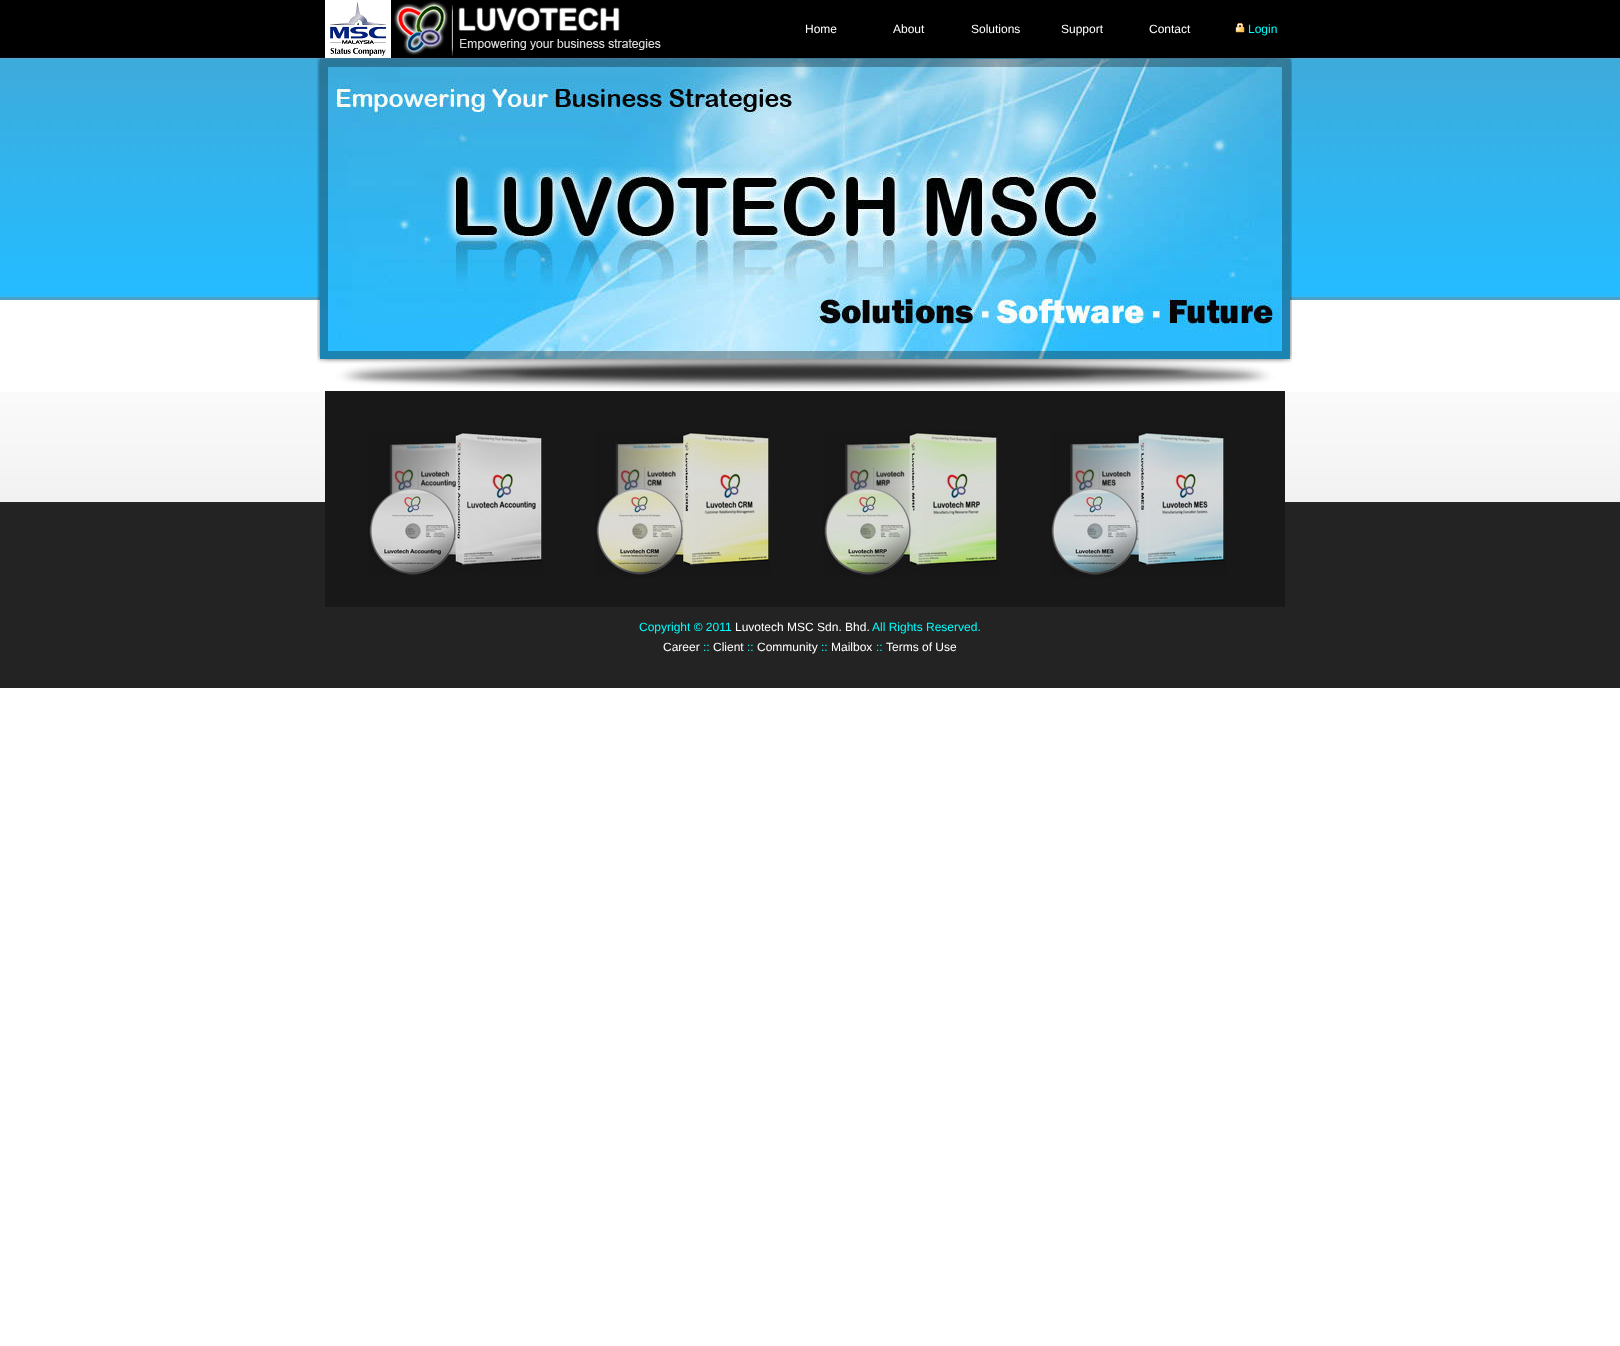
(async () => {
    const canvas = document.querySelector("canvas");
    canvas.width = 1620;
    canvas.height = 1346;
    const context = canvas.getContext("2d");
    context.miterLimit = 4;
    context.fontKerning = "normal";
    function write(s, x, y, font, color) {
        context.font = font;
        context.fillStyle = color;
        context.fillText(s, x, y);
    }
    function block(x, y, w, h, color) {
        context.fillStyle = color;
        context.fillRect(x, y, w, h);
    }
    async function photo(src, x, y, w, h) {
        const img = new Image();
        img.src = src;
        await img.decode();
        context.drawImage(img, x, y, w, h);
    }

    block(0, 0, 1620, 1346, "rgb(255, 255, 255)");
    await photo("media/1.png", 0, 0, 1620, 300);
    await photo("media/2.png", 0, 392, 1620, 296);
    await photo("media/3.png", 325, 0, 970, 58);
    write("Home", 805, 33, "12px Liberation Sans", "rgb(255, 255, 255)");
    write("About", 893, 33, "12px Liberation Sans", "rgb(255, 255, 255)");
    write("Solutions", 971, 33, "12px Liberation Sans", "rgb(255, 255, 255)");
    write("Support", 1061, 33, "12px Liberation Sans", "rgb(255, 255, 255)");
    write("Contact", 1149, 33, "12px Liberation Sans", "rgb(255, 255, 255)");
    await photo("media/4.png", 1235, 23, 10, 10);
    write("Login", 1248, 33, "12px Liberation Sans", "rgb(0, 255, 255)");
    await photo("media/5.png", 317, 58, 975, 332);
    block(325, 391, 960, 216, "rgb(24, 24, 24)");
    await photo("media/6.png", 368, 432, 175, 143);
    await photo("media/7.png", 595, 432, 176, 146);
    await photo("media/8.png", 823, 430, 176, 148);
    await photo("media/9.png", 1050, 432, 177, 146);
    write("Copyright © 2011", 639, 631, "12px Liberation Sans", "rgb(0, 255, 255)");
    write("Luvotech MSC Sdn. Bhd.", 735, 631, "12px Liberation Sans", "rgb(255, 255, 255)");
    write("All Rights Reserved.", 872, 631, "12px Liberation Sans", "rgb(0, 255, 255)");
    write("Career", 663, 651, "12px Liberation Sans", "rgb(255, 255, 255)");
    write("::", 703, 651, "12px Liberation Sans", "rgb(0, 255, 255)");
    write("Client", 713, 651, "12px Liberation Sans", "rgb(255, 255, 255)");
    write("::", 747, 651, "12px Liberation Sans", "rgb(0, 255, 255)");
    write("Community", 757, 651, "12px Liberation Sans", "rgb(255, 255, 255)");
    write("::", 821, 651, "12px Liberation Sans", "rgb(0, 255, 255)");
    write("Mailbox", 831, 651, "12px Liberation Sans", "rgb(255, 255, 255)");
    write("::", 876, 651, "12px Liberation Sans", "rgb(0, 255, 255)");
    write("Terms of Use", 886, 651, "12px Liberation Sans", "rgb(255, 255, 255)");
})();
